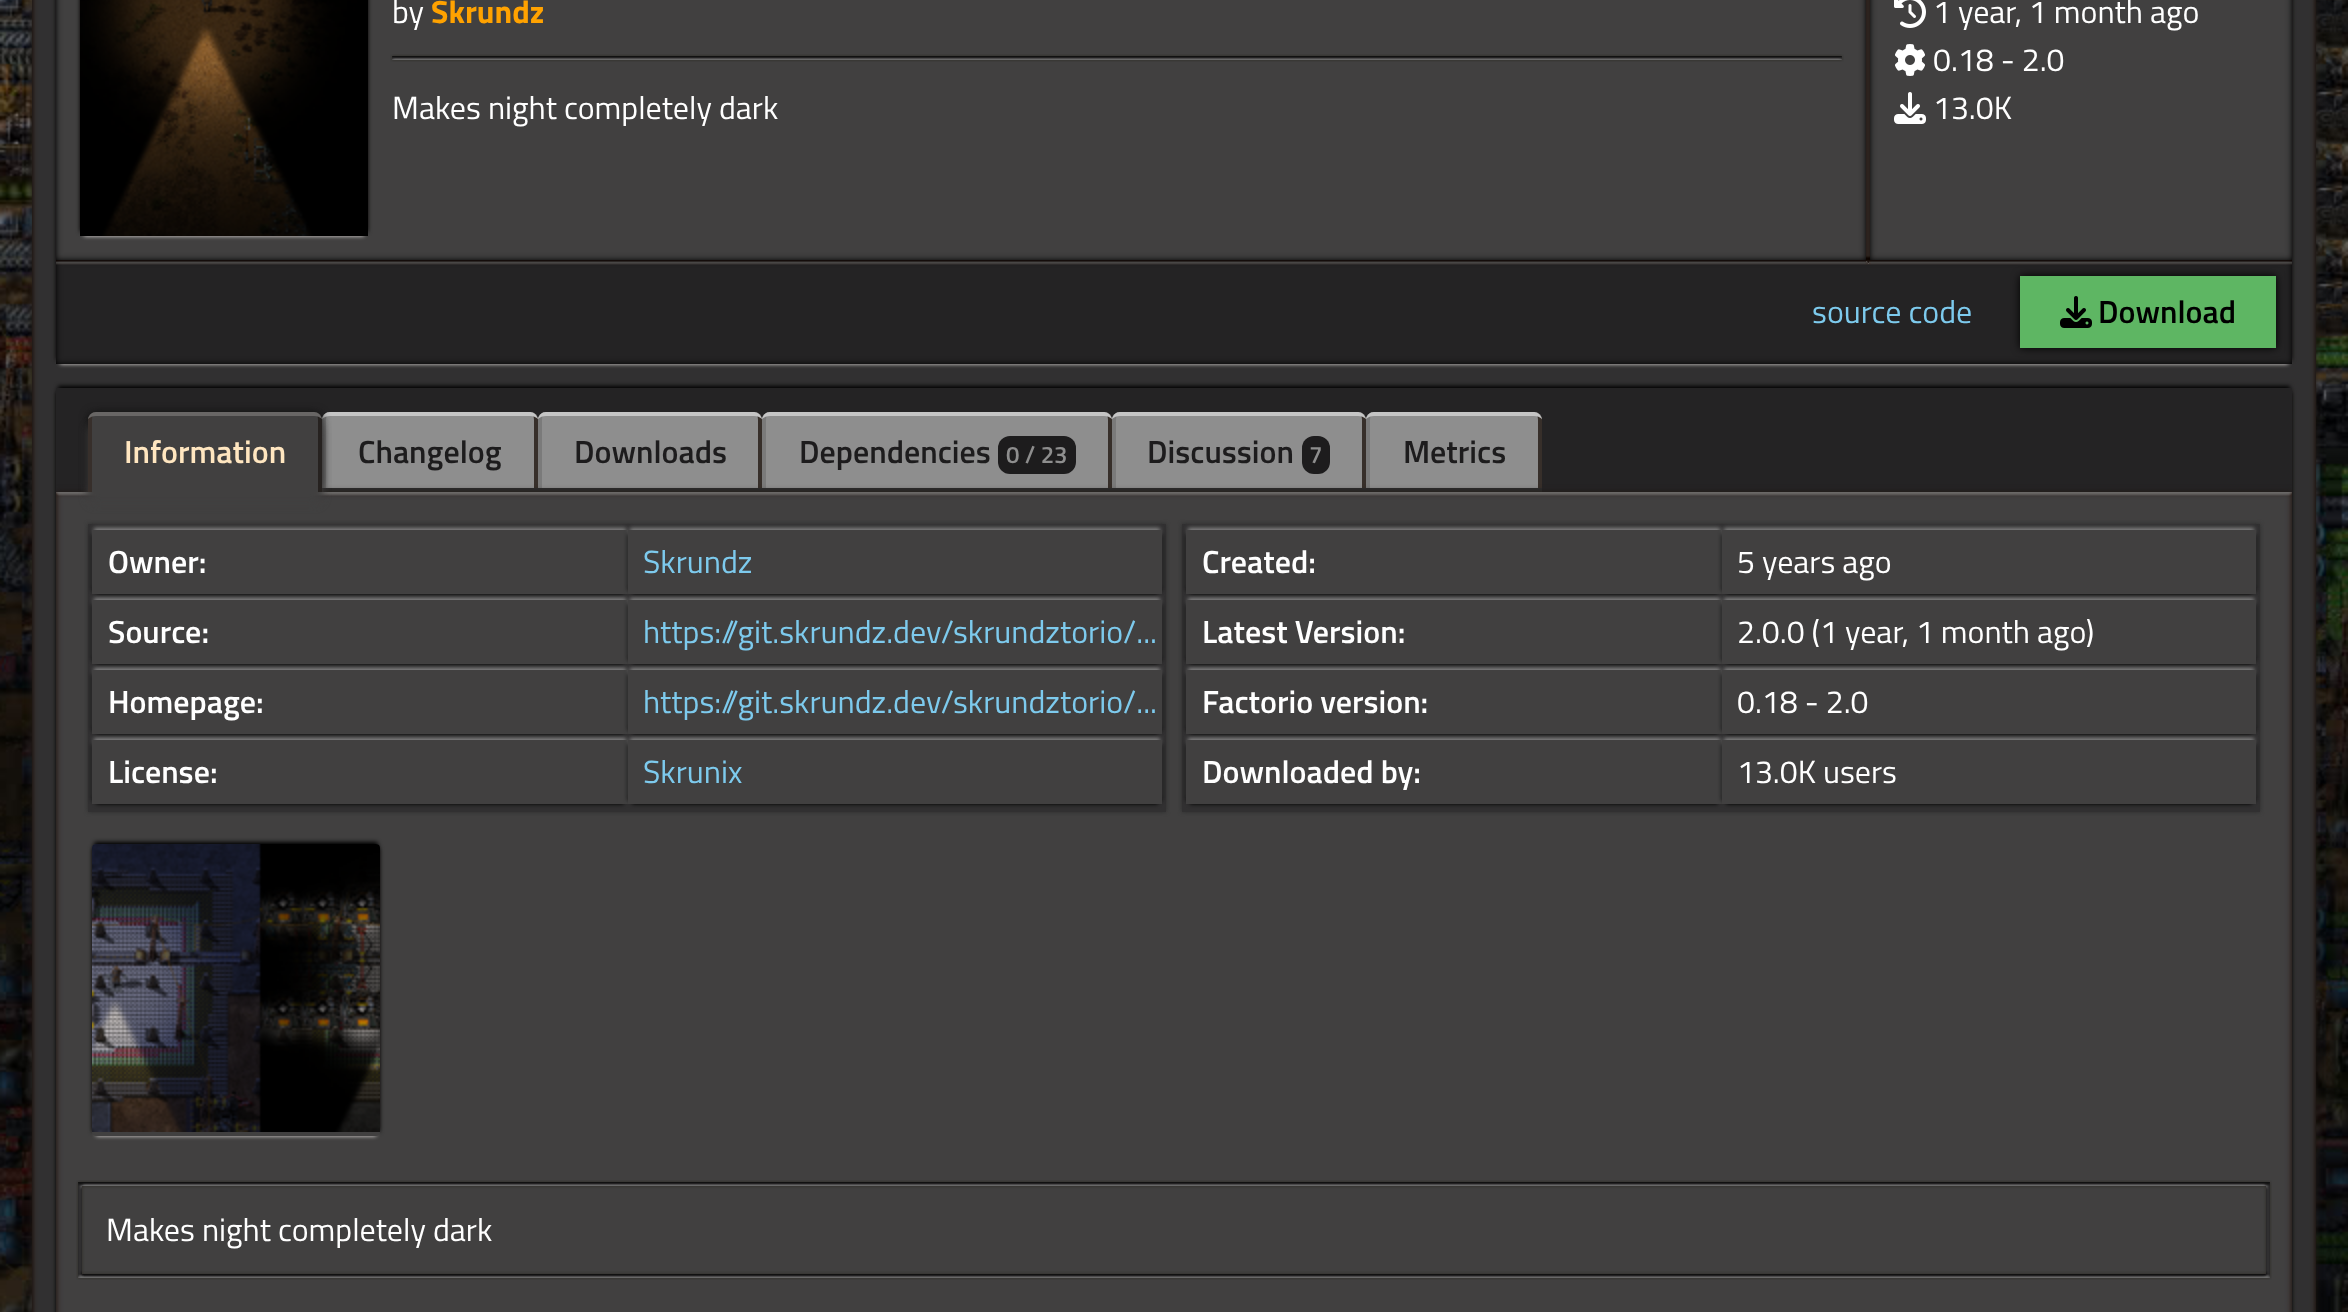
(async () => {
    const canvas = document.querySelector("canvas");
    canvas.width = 2348;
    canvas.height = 1312;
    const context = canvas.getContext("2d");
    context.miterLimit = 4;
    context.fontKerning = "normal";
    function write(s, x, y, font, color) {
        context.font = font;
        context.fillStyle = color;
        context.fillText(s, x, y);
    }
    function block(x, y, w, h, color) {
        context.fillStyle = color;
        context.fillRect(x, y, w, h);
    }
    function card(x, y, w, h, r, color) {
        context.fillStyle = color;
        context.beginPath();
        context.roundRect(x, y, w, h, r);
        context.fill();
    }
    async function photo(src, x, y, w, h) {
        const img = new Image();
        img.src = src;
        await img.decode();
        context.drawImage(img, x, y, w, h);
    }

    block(0, 0, 2348, 1312, "rgb(255, 255, 255)");
    await photo("media/1.png", 0, 0, 2348, 1312);
    context.fillStyle = "rgb(32, 24, 21)";
    context.filter = "blur(3px)";
    context.beginPath();
    context.rect(32, -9, 2284, 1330);
    context.fill();
    context.filter = "none";
    block(40, 0, 2268, 1312, "rgb(49, 48, 49)");
    await photo("media/2.png", 32, 0, 2284, 1312);
    context.fillStyle = "rgb(235, 230, 228)";
    context.filter = "blur(2px)";
    context.beginPath();
    context.rect(60, -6, 2228, 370);
    context.fill();
    context.filter = "none";
    context.fillStyle = "rgb(15, 13, 12)";
    context.filter = "blur(2px)";
    context.beginPath();
    context.rect(64, -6, 2228, 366);
    context.fill();
    context.filter = "none";
    context.filter = "blur(2px)";
    context.beginPath();
    context.rect(56, -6, 2228, 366);
    context.fill();
    context.filter = "none";
    context.fillStyle = "rgb(0, 0, 0)";
    context.filter = "blur(2px)";
    context.beginPath();
    context.rect(58, -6, 2232, 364);
    context.fill();
    context.filter = "none";
    block(1866, 0, 4, 258, "rgb(65, 64, 64)");
    block(56, 260, 2236, 104, "rgb(36, 35, 36)");
    await photo("media/10.png", 56, 255, 2236, 109);
    block(56, 0, 1810, 260, "rgb(65, 64, 64)");
    await photo("media/3.png", 56, 0, 1815, 265);
    context.fillStyle = "rgb(235, 230, 228)";
    context.filter = "blur(2px)";
    context.beginPath();
    context.rect(84, -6, 280, 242);
    context.fill();
    context.filter = "none";
    context.fillStyle = "rgb(15, 13, 12)";
    context.filter = "blur(2px)";
    context.beginPath();
    context.rect(88, -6, 280, 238);
    context.fill();
    context.filter = "none";
    context.filter = "blur(2px)";
    context.beginPath();
    context.rect(80, -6, 280, 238);
    context.fill();
    context.filter = "none";
    context.fillStyle = "rgb(0, 0, 0)";
    context.filter = "blur(2px)";
    context.beginPath();
    context.rect(82, -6, 284, 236);
    context.fill();
    context.filter = "none";
    await photo("media/4.png", 80, 0, 288, 236);
    write("by", 392, 23, "32px Titillium Web", "rgb(255, 255, 255)");
    write("Skrundz", 431, 23, "bold 32px Titillium Web", "rgb(255, 162, 0)");
    await photo("media/5.png", 390, 54, 1454, 8);
    write("Makes night completely dark", 392, 119, "32px Titillium Web", "rgb(255, 255, 255)");
    block(1870, 0, 422, 260, "rgb(65, 64, 64)");
    context.fillStyle = "rgb(0, 0, 0)";
    context.filter = "blur(4px)";
    context.beginPath();
    context.rect(2020, 276, 256, 72);
    context.fill();
    context.filter = "none";
    await photo("media/6.png", 1865, 0, 427, 265);
    await photo("media/7.png", 1894, 0, 32, 28);
    write("1 year, 1 month ago", 1933, 23, "32px Titillium Web", "rgb(255, 255, 255)");
    await photo("media/8.png", 1895, 44, 30, 32);
    write("0.18 - 2.0", 1933, 71, "32px Titillium Web", "rgb(255, 255, 255)");
    await photo("media/9.png", 1894, 92, 32, 32);
    write("13.0K", 1933, 119, "32px Titillium Web", "rgb(255, 255, 255)");
    write("source code", 1812, 323, "32px Titillium Web", "rgb(125, 202, 237)");
    block(2020, 276, 256, 72, "rgb(94, 182, 99)");
    await photo("media/11.png", 2060, 296, 32, 32);
    write("Download", 2098, 323, "600 32px Titillium Web", "rgb(0, 0, 0)");
    context.fillStyle = "rgb(15, 13, 12)";
    context.filter = "blur(2px)";
    context.beginPath();
    context.rect(64, 392, 2228, 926);
    context.fill();
    context.filter = "none";
    context.filter = "blur(2px)";
    context.beginPath();
    context.rect(56, 392, 2228, 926);
    context.fill();
    context.filter = "none";
    context.fillStyle = "rgb(0, 0, 0)";
    context.filter = "blur(2px)";
    context.beginPath();
    context.rect(58, 386, 2232, 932);
    context.fill();
    context.filter = "none";
    block(56, 388, 2236, 104, "rgb(36, 35, 36)");
    context.fillStyle = "rgb(142, 142, 142)";
    context.beginPath();
    context.roundRect(322, 412, 216, 80, [8, 8, 0, 0]);
    context.fill();
    context.fillStyle = "rgb(122, 122, 122)";
    context.beginPath();
    context.moveTo(329, 412);
    context.bezierCurveTo(325, 413, 322, 416, 322, 420);
    context.lineTo(322, 492);
    context.lineTo(326, 492);
    context.lineTo(326, 420);
    context.bezierCurveTo(326, 417, 327, 414, 329, 412);
    context.closePath();
    context.fill();
    context.fillStyle = "rgb(55, 47, 42)";
    context.beginPath();
    context.moveTo(534, 492);
    context.lineTo(538, 492);
    context.lineTo(538, 420);
    context.bezierCurveTo(538, 416, 535, 413, 531, 412);
    context.bezierCurveTo(533, 414, 534, 417, 534, 420);
    context.closePath();
    context.fill();
    block(322, 488, 216, 4, "rgb(45, 45, 45)");
    context.fillStyle = "rgb(197, 197, 197)";
    context.beginPath();
    context.moveTo(330, 416);
    context.lineTo(530, 416);
    context.bezierCurveTo(533, 416, 536, 417, 538, 419);
    context.bezierCurveTo(537, 415, 534, 412, 530, 412);
    context.lineTo(330, 412);
    context.bezierCurveTo(326, 412, 323, 415, 322, 419);
    context.bezierCurveTo(324, 417, 327, 416, 330, 416);
    context.closePath();
    context.fill();
    context.fillStyle = "rgb(142, 142, 142)";
    context.beginPath();
    context.roundRect(538, 412, 224, 80, [8, 8, 0, 0]);
    context.fill();
    context.fillStyle = "rgb(55, 47, 42)";
    context.beginPath();
    context.moveTo(758, 492);
    context.lineTo(762, 492);
    context.lineTo(762, 420);
    context.bezierCurveTo(762, 416, 759, 413, 755, 412);
    context.bezierCurveTo(757, 414, 758, 417, 758, 420);
    context.closePath();
    context.fill();
    context.fillStyle = "rgb(122, 122, 122)";
    context.beginPath();
    context.moveTo(545, 412);
    context.bezierCurveTo(541, 413, 538, 416, 538, 420);
    context.lineTo(538, 492);
    context.lineTo(542, 492);
    context.lineTo(542, 420);
    context.bezierCurveTo(542, 417, 543, 414, 545, 412);
    context.closePath();
    context.fill();
    block(538, 488, 224, 4, "rgb(45, 45, 45)");
    context.fillStyle = "rgb(142, 142, 142)";
    context.beginPath();
    context.roundRect(762, 412, 350, 80, [8, 8, 0, 0]);
    context.fill();
    context.fillStyle = "rgb(55, 47, 42)";
    context.beginPath();
    context.moveTo(1108, 492);
    context.lineTo(1112, 492);
    context.lineTo(1112, 420);
    context.bezierCurveTo(1112, 416, 1109, 413, 1105, 412);
    context.bezierCurveTo(1107, 414, 1108, 417, 1108, 420);
    context.closePath();
    context.fill();
    context.fillStyle = "rgb(122, 122, 122)";
    context.beginPath();
    context.moveTo(769, 412);
    context.bezierCurveTo(765, 413, 762, 416, 762, 420);
    context.lineTo(762, 492);
    context.lineTo(766, 492);
    context.lineTo(766, 420);
    context.bezierCurveTo(766, 417, 767, 414, 769, 412);
    context.closePath();
    context.fill();
    block(762, 488, 350, 4, "rgb(45, 45, 45)");
    context.fillStyle = "rgb(142, 142, 142)";
    context.beginPath();
    context.roundRect(1112, 412, 254, 80, [8, 8, 0, 0]);
    context.fill();
    context.fillStyle = "rgb(55, 47, 42)";
    context.beginPath();
    context.moveTo(1362, 492);
    context.lineTo(1366, 492);
    context.lineTo(1366, 420);
    context.bezierCurveTo(1366, 416, 1363, 413, 1359, 412);
    context.bezierCurveTo(1361, 414, 1362, 417, 1362, 420);
    context.closePath();
    context.fill();
    context.fillStyle = "rgb(122, 122, 122)";
    context.beginPath();
    context.moveTo(1119, 412);
    context.bezierCurveTo(1115, 413, 1112, 416, 1112, 420);
    context.lineTo(1112, 492);
    context.lineTo(1116, 492);
    context.lineTo(1116, 420);
    context.bezierCurveTo(1116, 417, 1117, 414, 1119, 412);
    context.closePath();
    context.fill();
    block(1112, 488, 254, 4, "rgb(45, 45, 45)");
    context.fillStyle = "rgb(142, 142, 142)";
    context.beginPath();
    context.roundRect(1366, 412, 176, 80, [8, 8, 0, 0]);
    context.fill();
    context.fillStyle = "rgb(55, 47, 42)";
    context.beginPath();
    context.moveTo(1538, 492);
    context.lineTo(1542, 492);
    context.lineTo(1542, 420);
    context.bezierCurveTo(1542, 416, 1539, 413, 1535, 412);
    context.bezierCurveTo(1537, 414, 1538, 417, 1538, 420);
    context.closePath();
    context.fill();
    context.fillStyle = "rgb(122, 122, 122)";
    context.beginPath();
    context.moveTo(1373, 412);
    context.bezierCurveTo(1369, 413, 1366, 416, 1366, 420);
    context.lineTo(1366, 492);
    context.lineTo(1370, 492);
    context.lineTo(1370, 420);
    context.bezierCurveTo(1370, 417, 1371, 414, 1373, 412);
    context.closePath();
    context.fill();
    block(1366, 488, 176, 4, "rgb(45, 45, 45)");
    context.save();
    context.beginPath();
    context.rect(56, 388, 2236, 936);
    context.clip();
    context.fillStyle = "rgb(32, 24, 21)";
    context.filter = "blur(3px)";
    context.beginPath();
    context.rect(56, 492, 2236, 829);
    context.fill();
    context.filter = "none";
    context.restore();
    block(64, 500, 2220, 812, "rgb(65, 64, 64)");
    await photo("media/12.png", 56, 492, 2236, 820);
    context.fillStyle = "rgb(16, 16, 16)";
    context.filter = "blur(4px)";
    context.beginPath();
    context.roundRect(88, 412, 234, 80, 8);
    context.fill();
    context.filter = "none";
    context.fillStyle = "rgb(65, 64, 64)";
    context.filter = "blur(4px)";
    context.beginPath();
    context.roundRect(88, 424, 234, 80, 8);
    context.fill();
    context.filter = "none";
    context.beginPath();
    context.roundRect(88, 412, 234, 80, [8, 8, 0, 0]);
    context.fill();
    context.fillStyle = "rgb(38, 34, 32)";
    context.beginPath();
    context.moveTo(318, 492);
    context.lineTo(322, 492);
    context.lineTo(322, 420);
    context.bezierCurveTo(322, 416, 319, 413, 315, 412);
    context.bezierCurveTo(317, 414, 318, 417, 318, 420);
    context.closePath();
    context.fill();
    context.fillStyle = "rgb(55, 47, 43)";
    context.beginPath();
    context.moveTo(95, 412);
    context.bezierCurveTo(91, 413, 88, 416, 88, 420);
    context.lineTo(88, 492);
    context.lineTo(92, 492);
    context.lineTo(92, 420);
    context.bezierCurveTo(92, 417, 93, 414, 95, 412);
    context.closePath();
    context.fill();
    context.fillStyle = "rgb(104, 102, 101)";
    context.beginPath();
    context.moveTo(96, 416);
    context.lineTo(314, 416);
    context.bezierCurveTo(317, 416, 320, 417, 322, 419);
    context.bezierCurveTo(321, 415, 318, 412, 314, 412);
    context.lineTo(96, 412);
    context.bezierCurveTo(92, 412, 89, 415, 88, 419);
    context.bezierCurveTo(90, 417, 93, 416, 96, 416);
    context.closePath();
    context.fill();
    write("Information", 124, 463, "600 32px Titillium Web", "rgb(255, 230, 192)");
    write("Changelog", 358, 463, "600 32px Titillium Web", "rgb(29, 28, 29)");
    context.fillStyle = "rgb(197, 197, 197)";
    context.beginPath();
    context.moveTo(546, 416);
    context.lineTo(754, 416);
    context.bezierCurveTo(757, 416, 760, 417, 762, 419);
    context.bezierCurveTo(761, 415, 758, 412, 754, 412);
    context.lineTo(546, 412);
    context.bezierCurveTo(542, 412, 539, 415, 538, 419);
    context.bezierCurveTo(540, 417, 543, 416, 546, 416);
    context.closePath();
    context.fill();
    write("Downloads", 574, 463, "600 32px Titillium Web", "rgb(29, 28, 29)");
    context.fillStyle = "rgb(197, 197, 197)";
    context.beginPath();
    context.moveTo(770, 416);
    context.lineTo(1104, 416);
    context.bezierCurveTo(1107, 416, 1110, 417, 1112, 419);
    context.bezierCurveTo(1111, 415, 1108, 412, 1104, 412);
    context.lineTo(770, 412);
    context.bezierCurveTo(766, 412, 763, 415, 762, 419);
    context.bezierCurveTo(764, 417, 767, 416, 770, 416);
    context.closePath();
    context.fill();
    write("Dependencies", 799, 463, "600 32px Titillium Web", "rgb(29, 28, 29)");
    card(998, 436, 78, 38, 12, "rgb(29, 28, 29)");
    write("0 / 23", 1006, 463, "600 24px Titillium Web", "rgb(142, 142, 142)");
    context.fillStyle = "rgb(197, 197, 197)";
    context.beginPath();
    context.moveTo(1120, 416);
    context.lineTo(1358, 416);
    context.bezierCurveTo(1361, 416, 1364, 417, 1366, 419);
    context.bezierCurveTo(1365, 415, 1362, 412, 1358, 412);
    context.lineTo(1120, 412);
    context.bezierCurveTo(1116, 412, 1113, 415, 1112, 419);
    context.bezierCurveTo(1114, 417, 1117, 416, 1120, 416);
    context.closePath();
    context.fill();
    write("Discussion", 1147, 463, "600 32px Titillium Web", "rgb(29, 28, 29)");
    card(1302, 436, 28, 38, 12, "rgb(29, 28, 29)");
    write("7", 1309, 463, "600 24px Titillium Web", "rgb(142, 142, 142)");
    context.fillStyle = "rgb(197, 197, 197)";
    context.beginPath();
    context.moveTo(1374, 416);
    context.lineTo(1534, 416);
    context.bezierCurveTo(1537, 416, 1540, 417, 1542, 419);
    context.bezierCurveTo(1541, 415, 1538, 412, 1534, 412);
    context.lineTo(1374, 412);
    context.bezierCurveTo(1370, 412, 1367, 415, 1366, 419);
    context.bezierCurveTo(1368, 417, 1371, 416, 1374, 416);
    context.closePath();
    context.fill();
    write("Metrics", 1403, 463, "600 32px Titillium Web", "rgb(29, 28, 29)");
    context.fillStyle = "rgb(43, 43, 43)";
    context.filter = "blur(2px)";
    context.beginPath();
    context.rect(88, 524, 1078, 288);
    context.fill();
    context.filter = "none";
    block(88, 524, 1078, 288, "rgb(49, 48, 49)");
    context.fillStyle = "rgb(0, 0, 0)";
    context.filter = "blur(2px)";
    context.beginPath();
    context.rect(96, 538, 528, 56);
    context.fill();
    context.filter = "none";
    context.filter = "blur(2px)";
    context.beginPath();
    context.rect(92, 534, 528, 56);
    context.fill();
    context.filter = "none";
    context.fillStyle = "rgb(136, 136, 136)";
    context.filter = "blur(2px)";
    context.beginPath();
    context.rect(94, 528, 532, 60);
    context.fill();
    context.filter = "none";
    block(92, 530, 536, 64, "rgb(65, 64, 64)");
    write("Owner:", 108, 573, "600 32px Titillium Web", "rgb(255, 255, 255)");
    context.fillStyle = "rgb(0, 0, 0)";
    context.filter = "blur(2px)";
    context.beginPath();
    context.rect(632, 538, 526, 56);
    context.fill();
    context.filter = "none";
    context.filter = "blur(2px)";
    context.beginPath();
    context.rect(636, 534, 526, 56);
    context.fill();
    context.filter = "none";
    context.filter = "blur(2px)";
    context.beginPath();
    context.rect(628, 534, 526, 56);
    context.fill();
    context.filter = "none";
    context.fillStyle = "rgb(136, 136, 136)";
    context.filter = "blur(2px)";
    context.beginPath();
    context.rect(630, 528, 530, 60);
    context.fill();
    context.filter = "none";
    block(628, 530, 534, 64, "rgb(65, 64, 64)");
    write("Skrundz", 643, 573, "32px Titillium Web", "rgb(125, 202, 237)");
    context.fillStyle = "rgb(0, 0, 0)";
    context.filter = "blur(2px)";
    context.beginPath();
    context.rect(96, 608, 528, 56);
    context.fill();
    context.filter = "none";
    context.filter = "blur(2px)";
    context.beginPath();
    context.rect(92, 604, 528, 56);
    context.fill();
    context.filter = "none";
    context.fillStyle = "rgb(136, 136, 136)";
    context.filter = "blur(2px)";
    context.beginPath();
    context.rect(94, 598, 532, 60);
    context.fill();
    context.filter = "none";
    block(92, 600, 536, 64, "rgb(65, 64, 64)");
    write("Source:", 108, 643, "600 32px Titillium Web", "rgb(255, 255, 255)");
    context.fillStyle = "rgb(0, 0, 0)";
    context.filter = "blur(2px)";
    context.beginPath();
    context.rect(632, 608, 526, 56);
    context.fill();
    context.filter = "none";
    context.filter = "blur(2px)";
    context.beginPath();
    context.rect(636, 604, 526, 56);
    context.fill();
    context.filter = "none";
    context.filter = "blur(2px)";
    context.beginPath();
    context.rect(628, 604, 526, 56);
    context.fill();
    context.filter = "none";
    context.fillStyle = "rgb(136, 136, 136)";
    context.filter = "blur(2px)";
    context.beginPath();
    context.rect(630, 598, 530, 60);
    context.fill();
    context.filter = "none";
    block(628, 600, 534, 64, "rgb(65, 64, 64)");
    write("https://git.skrundz.dev/skrundztorio/...", 643, 643, "32px Titillium Web", "rgb(125, 202, 237)");
    context.fillStyle = "rgb(0, 0, 0)";
    context.filter = "blur(2px)";
    context.beginPath();
    context.rect(96, 678, 528, 56);
    context.fill();
    context.filter = "none";
    context.filter = "blur(2px)";
    context.beginPath();
    context.rect(92, 674, 528, 56);
    context.fill();
    context.filter = "none";
    context.fillStyle = "rgb(136, 136, 136)";
    context.filter = "blur(2px)";
    context.beginPath();
    context.rect(94, 668, 532, 60);
    context.fill();
    context.filter = "none";
    block(92, 670, 536, 64, "rgb(65, 64, 64)");
    write("Homepage:", 108, 713, "600 32px Titillium Web", "rgb(255, 255, 255)");
    context.fillStyle = "rgb(0, 0, 0)";
    context.filter = "blur(2px)";
    context.beginPath();
    context.rect(632, 678, 526, 56);
    context.fill();
    context.filter = "none";
    context.filter = "blur(2px)";
    context.beginPath();
    context.rect(636, 674, 526, 56);
    context.fill();
    context.filter = "none";
    context.filter = "blur(2px)";
    context.beginPath();
    context.rect(628, 674, 526, 56);
    context.fill();
    context.filter = "none";
    context.fillStyle = "rgb(136, 136, 136)";
    context.filter = "blur(2px)";
    context.beginPath();
    context.rect(630, 668, 530, 60);
    context.fill();
    context.filter = "none";
    block(628, 670, 534, 64, "rgb(65, 64, 64)");
    write("https://git.skrundz.dev/skrundztorio/...", 643, 713, "32px Titillium Web", "rgb(125, 202, 237)");
    context.fillStyle = "rgb(0, 0, 0)";
    context.filter = "blur(2px)";
    context.beginPath();
    context.rect(96, 748, 528, 56);
    context.fill();
    context.filter = "none";
    context.filter = "blur(2px)";
    context.beginPath();
    context.rect(92, 744, 528, 56);
    context.fill();
    context.filter = "none";
    context.fillStyle = "rgb(136, 136, 136)";
    context.filter = "blur(2px)";
    context.beginPath();
    context.rect(94, 738, 532, 60);
    context.fill();
    context.filter = "none";
    block(92, 740, 536, 64, "rgb(65, 64, 64)");
    write("License:", 108, 783, "600 32px Titillium Web", "rgb(255, 255, 255)");
    context.fillStyle = "rgb(0, 0, 0)";
    context.filter = "blur(2px)";
    context.beginPath();
    context.rect(632, 748, 526, 56);
    context.fill();
    context.filter = "none";
    context.filter = "blur(2px)";
    context.beginPath();
    context.rect(636, 744, 526, 56);
    context.fill();
    context.filter = "none";
    context.filter = "blur(2px)";
    context.beginPath();
    context.rect(628, 744, 526, 56);
    context.fill();
    context.filter = "none";
    context.fillStyle = "rgb(136, 136, 136)";
    context.filter = "blur(2px)";
    context.beginPath();
    context.rect(630, 738, 530, 60);
    context.fill();
    context.filter = "none";
    block(628, 740, 534, 64, "rgb(65, 64, 64)");
    write("Skrunix", 643, 783, "32px Titillium Web", "rgb(125, 202, 237)");
    context.fillStyle = "rgb(43, 43, 43)";
    context.filter = "blur(2px)";
    context.beginPath();
    context.rect(1182, 524, 1078, 288);
    context.fill();
    context.filter = "none";
    block(1182, 524, 1078, 288, "rgb(49, 48, 49)");
    context.fillStyle = "rgb(0, 0, 0)";
    context.filter = "blur(2px)";
    context.beginPath();
    context.rect(1190, 538, 528, 56);
    context.fill();
    context.filter = "none";
    context.filter = "blur(2px)";
    context.beginPath();
    context.rect(1186, 534, 528, 56);
    context.fill();
    context.filter = "none";
    context.fillStyle = "rgb(136, 136, 136)";
    context.filter = "blur(2px)";
    context.beginPath();
    context.rect(1188, 528, 532, 60);
    context.fill();
    context.filter = "none";
    block(1186, 530, 536, 64, "rgb(65, 64, 64)");
    write("Created:", 1202, 573, "600 32px Titillium Web", "rgb(255, 255, 255)");
    context.fillStyle = "rgb(0, 0, 0)";
    context.filter = "blur(2px)";
    context.beginPath();
    context.rect(1726, 538, 526, 56);
    context.fill();
    context.filter = "none";
    context.filter = "blur(2px)";
    context.beginPath();
    context.rect(1730, 534, 526, 56);
    context.fill();
    context.filter = "none";
    context.filter = "blur(2px)";
    context.beginPath();
    context.rect(1722, 534, 526, 56);
    context.fill();
    context.filter = "none";
    context.fillStyle = "rgb(136, 136, 136)";
    context.filter = "blur(2px)";
    context.beginPath();
    context.rect(1724, 528, 530, 60);
    context.fill();
    context.filter = "none";
    block(1722, 530, 534, 64, "rgb(65, 64, 64)");
    write("5 years ago", 1737, 573, "32px Titillium Web", "rgb(255, 255, 255)");
    context.fillStyle = "rgb(0, 0, 0)";
    context.filter = "blur(2px)";
    context.beginPath();
    context.rect(1190, 608, 528, 56);
    context.fill();
    context.filter = "none";
    context.filter = "blur(2px)";
    context.beginPath();
    context.rect(1186, 604, 528, 56);
    context.fill();
    context.filter = "none";
    context.fillStyle = "rgb(136, 136, 136)";
    context.filter = "blur(2px)";
    context.beginPath();
    context.rect(1188, 598, 532, 60);
    context.fill();
    context.filter = "none";
    block(1186, 600, 536, 64, "rgb(65, 64, 64)");
    write("Latest Version:", 1202, 643, "600 32px Titillium Web", "rgb(255, 255, 255)");
    context.fillStyle = "rgb(0, 0, 0)";
    context.filter = "blur(2px)";
    context.beginPath();
    context.rect(1726, 608, 526, 56);
    context.fill();
    context.filter = "none";
    context.filter = "blur(2px)";
    context.beginPath();
    context.rect(1730, 604, 526, 56);
    context.fill();
    context.filter = "none";
    context.filter = "blur(2px)";
    context.beginPath();
    context.rect(1722, 604, 526, 56);
    context.fill();
    context.filter = "none";
    context.fillStyle = "rgb(136, 136, 136)";
    context.filter = "blur(2px)";
    context.beginPath();
    context.rect(1724, 598, 530, 60);
    context.fill();
    context.filter = "none";
    block(1722, 600, 534, 64, "rgb(65, 64, 64)");
    write("2.0.0 (1 year, 1 month ago)", 1737, 643, "32px Titillium Web", "rgb(255, 255, 255)");
    context.fillStyle = "rgb(0, 0, 0)";
    context.filter = "blur(2px)";
    context.beginPath();
    context.rect(1190, 678, 528, 56);
    context.fill();
    context.filter = "none";
    context.filter = "blur(2px)";
    context.beginPath();
    context.rect(1186, 674, 528, 56);
    context.fill();
    context.filter = "none";
    context.fillStyle = "rgb(136, 136, 136)";
    context.filter = "blur(2px)";
    context.beginPath();
    context.rect(1188, 668, 532, 60);
    context.fill();
    context.filter = "none";
    block(1186, 670, 536, 64, "rgb(65, 64, 64)");
    write("Factorio version:", 1202, 713, "600 32px Titillium Web", "rgb(255, 255, 255)");
    context.fillStyle = "rgb(0, 0, 0)";
    context.filter = "blur(2px)";
    context.beginPath();
    context.rect(1726, 678, 526, 56);
    context.fill();
    context.filter = "none";
    context.filter = "blur(2px)";
    context.beginPath();
    context.rect(1730, 674, 526, 56);
    context.fill();
    context.filter = "none";
    context.filter = "blur(2px)";
    context.beginPath();
    context.rect(1722, 674, 526, 56);
    context.fill();
    context.filter = "none";
    context.fillStyle = "rgb(136, 136, 136)";
    context.filter = "blur(2px)";
    context.beginPath();
    context.rect(1724, 668, 530, 60);
    context.fill();
    context.filter = "none";
    block(1722, 670, 534, 64, "rgb(65, 64, 64)");
    write("0.18 - 2.0", 1737, 713, "32px Titillium Web", "rgb(255, 255, 255)");
    context.fillStyle = "rgb(0, 0, 0)";
    context.filter = "blur(2px)";
    context.beginPath();
    context.rect(1190, 748, 528, 56);
    context.fill();
    context.filter = "none";
    context.filter = "blur(2px)";
    context.beginPath();
    context.rect(1186, 744, 528, 56);
    context.fill();
    context.filter = "none";
    context.fillStyle = "rgb(136, 136, 136)";
    context.filter = "blur(2px)";
    context.beginPath();
    context.rect(1188, 738, 532, 60);
    context.fill();
    context.filter = "none";
    block(1186, 740, 536, 64, "rgb(65, 64, 64)");
    write("Downloaded by:", 1202, 783, "600 32px Titillium Web", "rgb(255, 255, 255)");
    context.fillStyle = "rgb(0, 0, 0)";
    context.filter = "blur(2px)";
    context.beginPath();
    context.rect(1726, 748, 526, 56);
    context.fill();
    context.filter = "none";
    context.filter = "blur(2px)";
    context.beginPath();
    context.rect(1730, 744, 526, 56);
    context.fill();
    context.filter = "none";
    context.filter = "blur(2px)";
    context.beginPath();
    context.rect(1722, 744, 526, 56);
    context.fill();
    context.filter = "none";
    context.fillStyle = "rgb(136, 136, 136)";
    context.filter = "blur(2px)";
    context.beginPath();
    context.rect(1724, 738, 530, 60);
    context.fill();
    context.filter = "none";
    block(1722, 740, 534, 64, "rgb(65, 64, 64)");
    write("13.0K users", 1737, 783, "32px Titillium Web", "rgb(255, 255, 255)");
    context.fillStyle = "rgb(235, 230, 228)";
    context.filter = "blur(2px)";
    context.beginPath();
    context.rect(96, 852, 280, 284);
    context.fill();
    context.filter = "none";
    context.fillStyle = "rgb(15, 13, 12)";
    context.filter = "blur(2px)";
    context.beginPath();
    context.rect(100, 848, 280, 284);
    context.fill();
    context.filter = "none";
    context.filter = "blur(2px)";
    context.beginPath();
    context.rect(92, 848, 280, 284);
    context.fill();
    context.filter = "none";
    context.fillStyle = "rgb(0, 0, 0)";
    context.filter = "blur(2px)";
    context.beginPath();
    context.roundRect(94, 842, 284, 288, 2);
    context.fill();
    context.filter = "none";
    card(92, 844, 288, 292, 4, "rgb(65, 64, 64)");
    await photo("media/13.png", 92, 844, 288, 288);
    await photo("media/14.png", 76, 1180, 2196, 100);
    write("Makes night completely dark", 106, 1241, "32px Titillium Web", "rgb(255, 255, 255)");
})();
